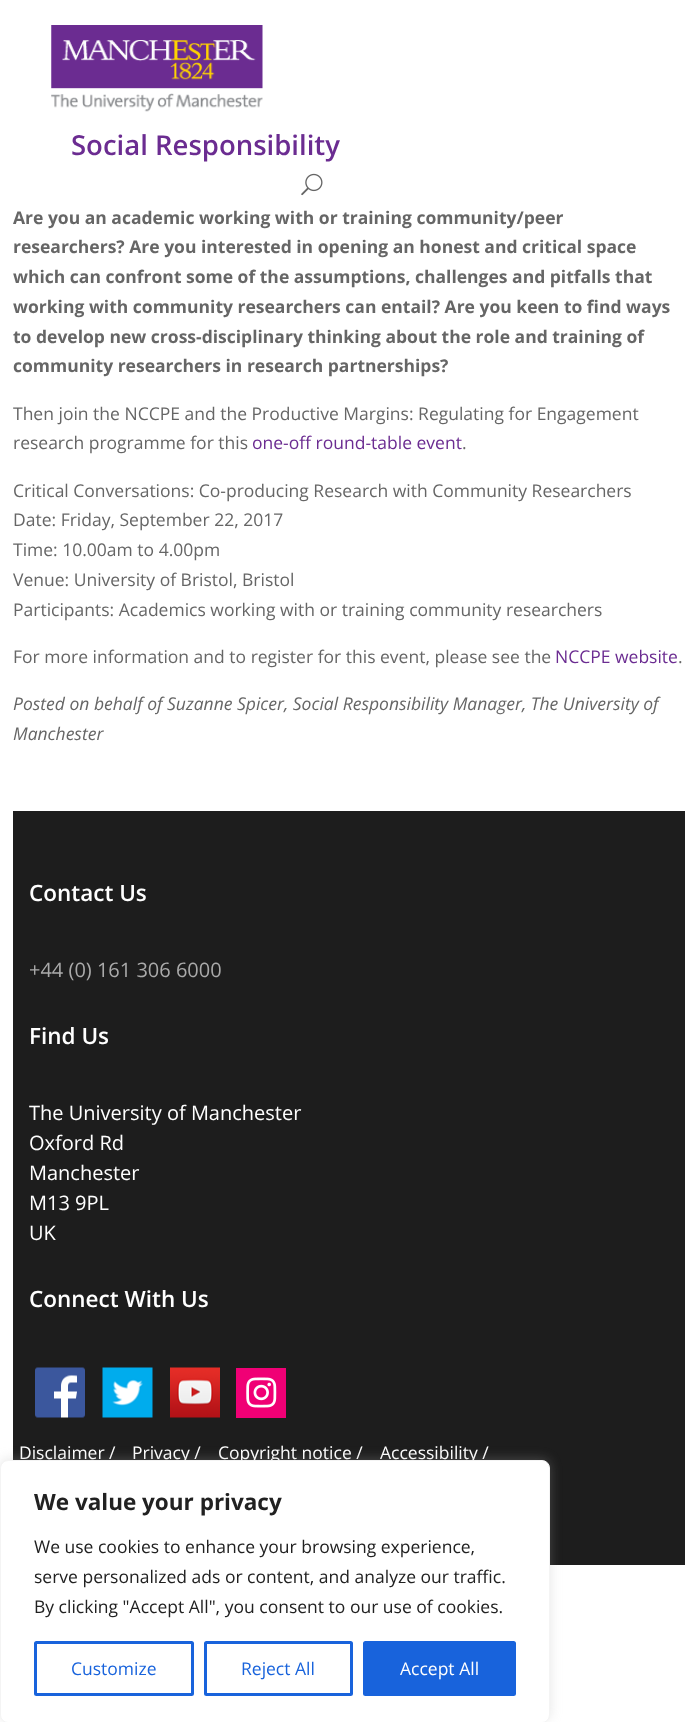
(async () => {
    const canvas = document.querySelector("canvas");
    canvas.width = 697;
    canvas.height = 1722;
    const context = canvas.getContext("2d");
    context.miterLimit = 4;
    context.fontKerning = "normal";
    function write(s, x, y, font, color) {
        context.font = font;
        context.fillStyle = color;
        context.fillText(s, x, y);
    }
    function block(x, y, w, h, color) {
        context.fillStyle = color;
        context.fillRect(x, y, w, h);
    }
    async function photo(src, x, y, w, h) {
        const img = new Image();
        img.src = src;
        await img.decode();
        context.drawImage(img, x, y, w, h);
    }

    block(0, 0, 697, 1722, "rgb(255, 255, 255)");
    await photo("media/1.png", 51, 25, 212, 87);
    write("Social Responsibility", 71, 155, "600 27.5px Open Sans", "rgb(107, 44, 145)");
    await photo("media/2.png", 301, 173, 22, 23);
    write("Are you an academic working with or training community/peer", 13, 224, "bold 17.5px Open Sans", "rgb(102, 102, 102)");
    write("researchers? Are you interested in opening an honest and critical space", 13, 253, "bold 17.5px Open Sans", "rgb(102, 102, 102)");
    write("which can confront some of the assumptions, challenges and pitfalls that", 13, 283, "bold 17.5px Open Sans", "rgb(102, 102, 102)");
    write("working with community researchers can entail? Are you keen to find ways", 13, 313, "bold 17.5px Open Sans", "rgb(102, 102, 102)");
    write("to develop new cross-disciplinary thinking about the role and training of", 13, 343, "bold 17.5px Open Sans", "rgb(102, 102, 102)");
    write("community researchers in research partnerships?", 13, 372, "bold 17.5px Open Sans", "rgb(102, 102, 102)");
    write("Then join the NCCPE and the Productive Margins: Regulating for Engagement", 13, 420, "17.5px Open Sans", "rgb(102, 102, 102)");
    write("research programme for this", 13, 449, "17.5px Open Sans", "rgb(102, 102, 102)");
    write("one-off round-table event", 252, 449, "17.5px Open Sans", "rgb(107, 44, 145)");
    write(".", 462, 449, "17.5px Open Sans", "rgb(102, 102, 102)");
    write("Critical Conversations: Co-producing Research with Community Researchers", 13, 497, "17.5px Open Sans", "rgb(102, 102, 102)");
    write("Date: Friday, September 22, 2017", 13, 526, "17.5px Open Sans", "rgb(102, 102, 102)");
    write("Time: 10.00am to 4.00pm", 13, 556, "17.5px Open Sans", "rgb(102, 102, 102)");
    write("Venue: University of Bristol, Bristol", 13, 586, "17.5px Open Sans", "rgb(102, 102, 102)");
    write("Participants: Academics working with or training community researchers", 13, 616, "17.5px Open Sans", "rgb(102, 102, 102)");
    write("For more information and to register for this event, please see the", 13, 663, "17.5px Open Sans", "rgb(102, 102, 102)");
    write("NCCPE website", 555, 663, "17.5px Open Sans", "rgb(107, 44, 145)");
    write(".", 678, 663, "17.5px Open Sans", "rgb(102, 102, 102)");
    write("Posted on behalf of Suzanne Spicer, Social Responsibility Manager, The University of", 13, 710, "italic 17.5px Open Sans", "rgb(102, 102, 102)");
    write("Manchester", 13, 740, "italic 17.5px Open Sans", "rgb(102, 102, 102)");
    block(13, 811, 672, 754, "rgb(29, 29, 29)");
    write("Contact Us", 29, 901, "600 22.5px Open Sans", "rgb(255, 255, 255)");
    write("+44 (0) 161 306 6000", 29, 977, "20px Open Sans", "rgb(170, 170, 170)");
    write("Find Us", 29, 1044, "600 22.5px Open Sans", "rgb(255, 255, 255)");
    write("The University of Manchester", 29, 1120, "20px Open Sans", "rgb(255, 255, 255)");
    write("Oxford Rd", 29, 1150, "20px Open Sans", "rgb(255, 255, 255)");
    write("Manchester", 29, 1180, "20px Open Sans", "rgb(255, 255, 255)");
    write("M13 9PL", 29, 1210, "20px Open Sans", "rgb(255, 255, 255)");
    write("UK", 29, 1240, "20px Open Sans", "rgb(255, 255, 255)");
    write("Connect With Us", 29, 1307, "600 22.5px Open Sans", "rgb(255, 255, 255)");
    await photo("media/3.png", 35, 1367, 50, 51);
    await photo("media/4.png", 102, 1367, 51, 51);
    await photo("media/5.png", 170, 1367, 50, 51);
    await photo("media/6.png", 236, 1368, 50, 50);
    write("Disclaimer /", 19, 1459, "17.5px Open Sans", "rgb(255, 255, 255)");
    write("Privacy /", 132, 1459, "17.5px Open Sans", "rgb(255, 255, 255)");
    write("Copyright notice /", 218, 1459, "17.5px Open Sans", "rgb(255, 255, 255)");
    write("Accessibility /", 380, 1459, "17.5px Open Sans", "rgb(255, 255, 255)");
    context.fillStyle = "rgba(172, 171, 171, 0.3)";
    context.filter = "blur(6px)";
    context.beginPath();
    context.roundRect(0, 1459, 550, 262, 8);
    context.fill();
    context.filter = "none";
    context.fillStyle = "rgb(255, 255, 255)";
    context.beginPath();
    context.roundRect(0.5, 1460.5, 549, 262, 7.5);
    context.fill();
    context.strokeStyle = "rgb(244, 244, 244)";
    context.stroke();
    write("We value your privacy", 34, 1510, "bold 22.5px Open Sans", "rgb(33, 33, 33)");
    write("We use cookies to enhance your browsing experience,", 34, 1553, "17.5px Open Sans", "rgb(33, 33, 33)");
    write("serve personalized ads or content, and analyze our traffic.", 34, 1583, "17.5px Open Sans", "rgb(33, 33, 33)");
    write("By clicking \"Accept All\", you consent to our use of cookies.", 34, 1613, "17.5px Open Sans", "rgb(33, 33, 33)");
    context.beginPath();
    context.roundRect(35.5, 1642.5, 157, 52, 1);
    context.strokeStyle = "rgb(24, 99, 220)";
    context.lineWidth = 3;
    context.stroke();
    write("Customize", 71, 1675, "17.5px Open Sans", "rgb(24, 99, 220)");
    context.beginPath();
    context.roundRect(205.5, 1642.5, 146, 52, 1);
    context.stroke();
    write("Reject All", 241, 1675, "17.5px Open Sans", "rgb(24, 99, 220)");
    context.beginPath();
    context.roundRect(364.5, 1642.5, 150, 52, 1);
    context.fill();
    context.stroke();
    write("Accept All", 400, 1675, "17.5px Open Sans", "rgb(255, 255, 255)");
})();
